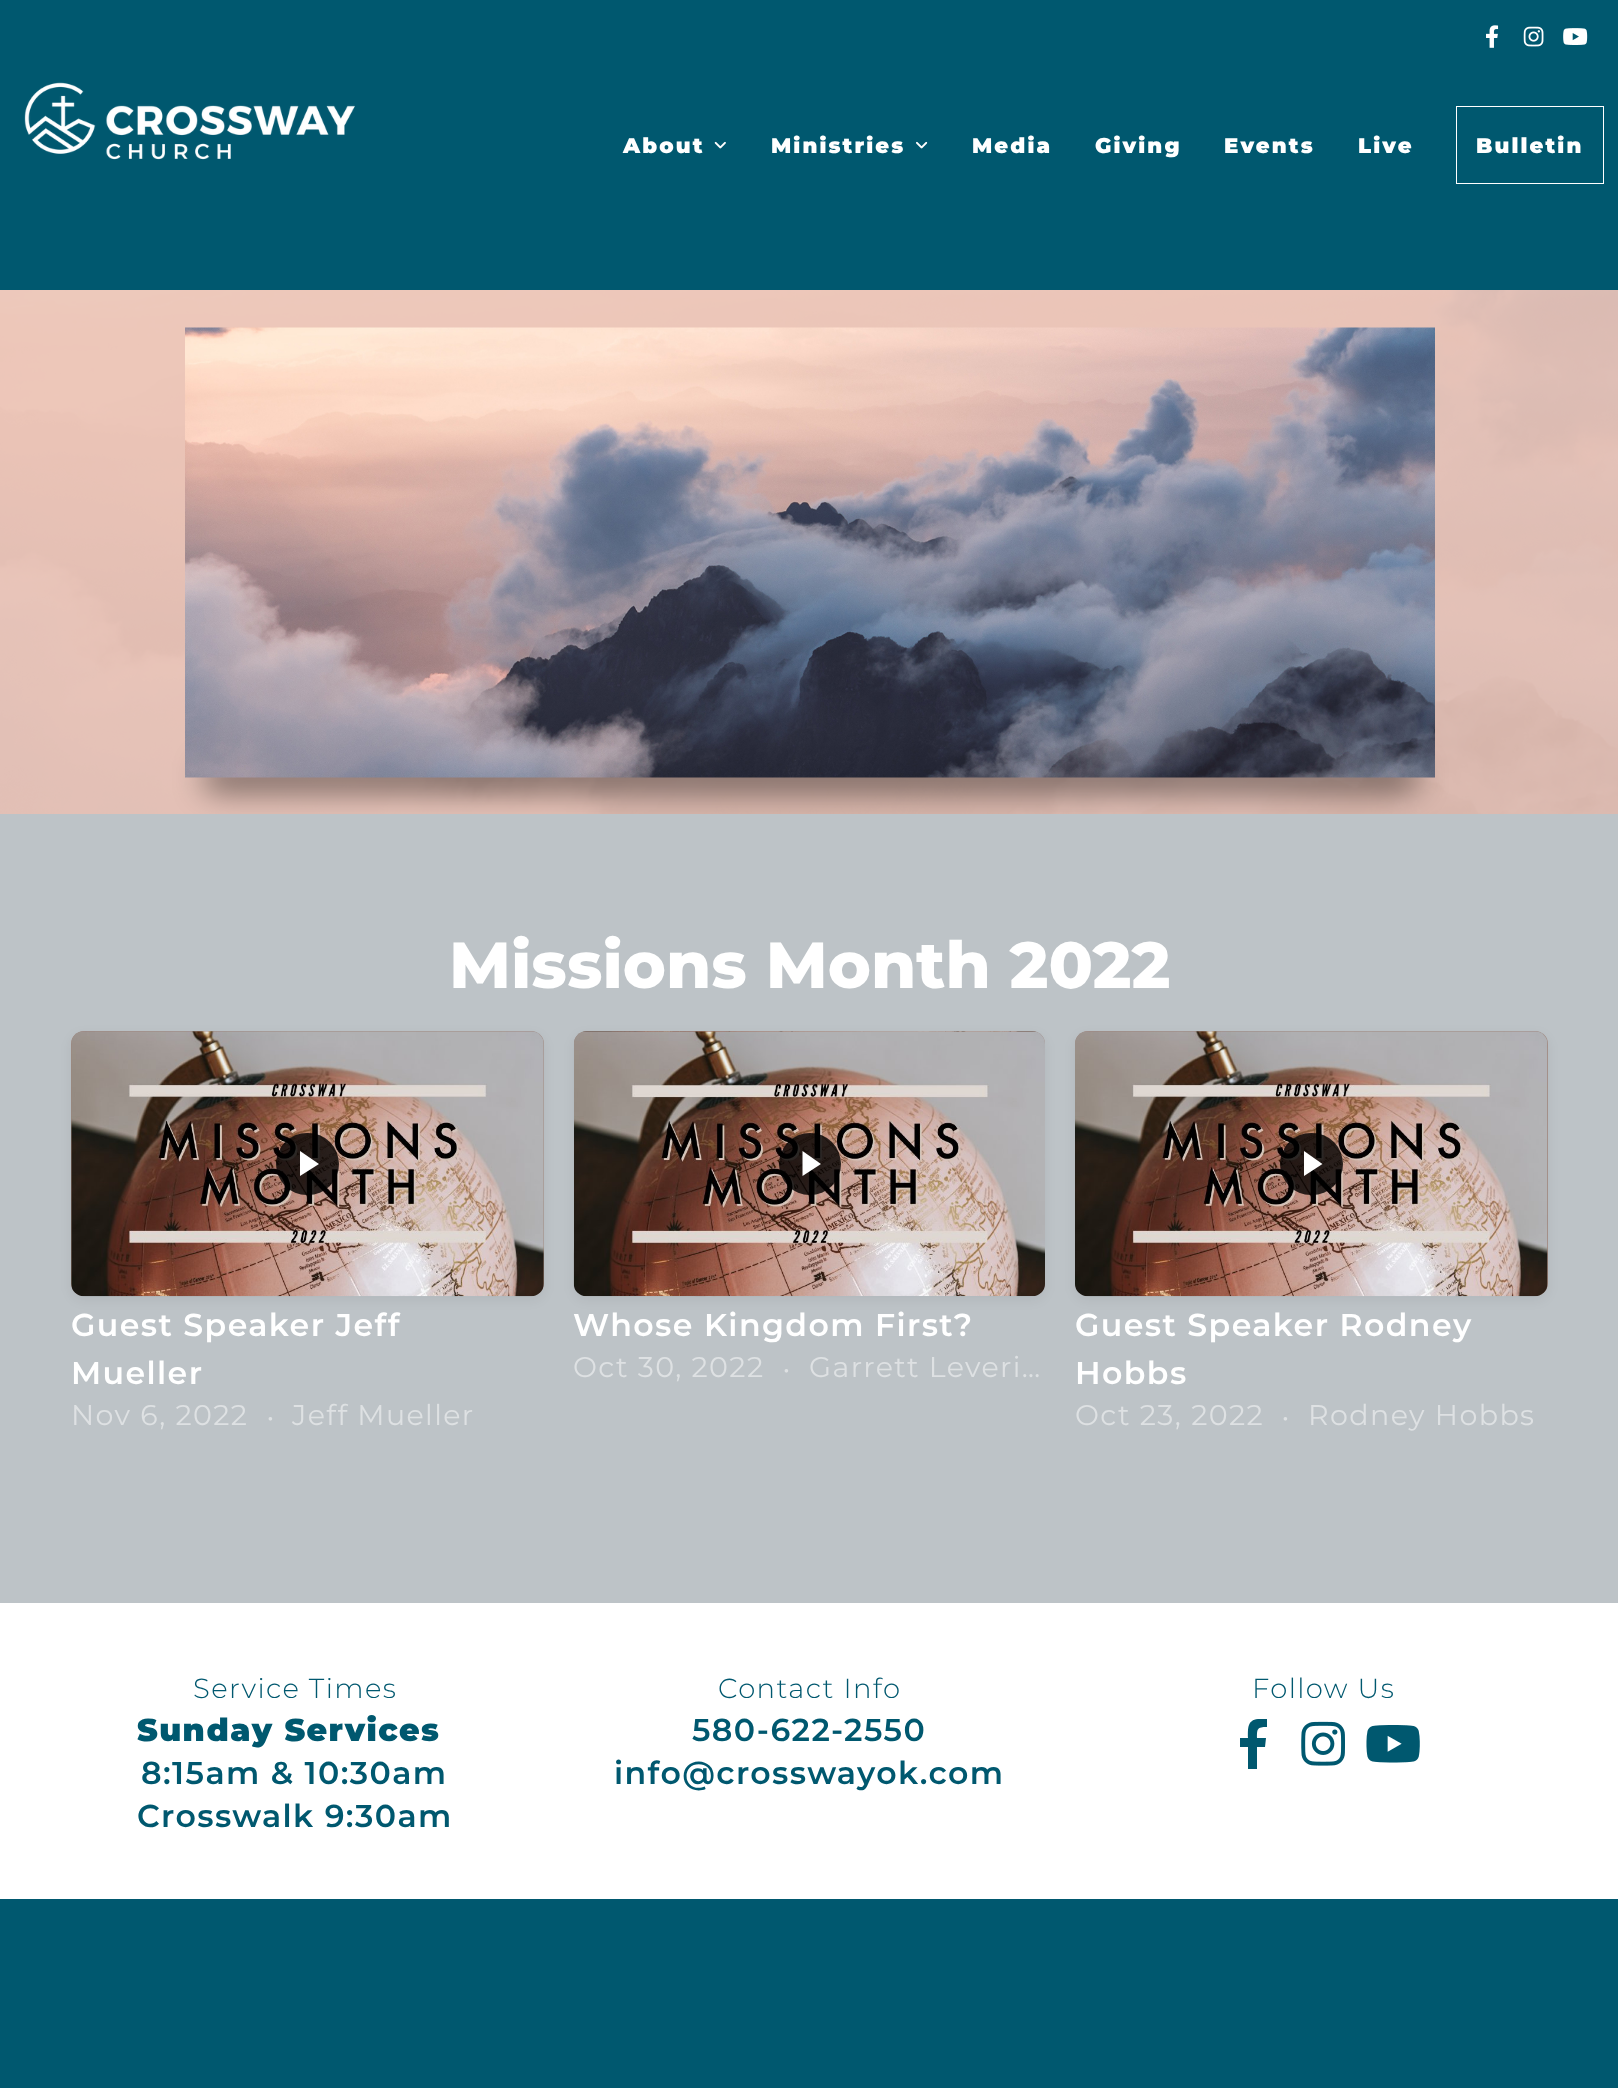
(async () => {
    const canvas = document.querySelector("canvas");
    canvas.width = 1618;
    canvas.height = 2088;
    const context = canvas.getContext("2d");
    context.miterLimit = 4;
    context.fontKerning = "normal";
    function write(s, x, y, font, color) {
        context.font = font;
        context.fillStyle = color;
        context.fillText(s, x, y);
    }
    function block(x, y, w, h, color) {
        context.fillStyle = color;
        context.fillRect(x, y, w, h);
    }
    function card(x, y, w, h, r, color) {
        context.fillStyle = color;
        context.beginPath();
        context.roundRect(x, y, w, h, r);
        context.fill();
    }
    async function photo(src, x, y, w, h) {
        const img = new Image();
        img.src = src;
        await img.decode();
        context.drawImage(img, x, y, w, h);
    }

    block(0, 0, 1618, 2088, "rgb(0, 88, 111)");
    await photo("media/1.png", 1486, 25, 13, 23);
    await photo("media/2.png", 1523, 26, 21, 21);
    await photo("media/3.png", 1563, 28, 25, 17);
    await photo("media/4.png", 24, 82, 331, 78);
    context.letterSpacing = "2.1px";
    write("About", 623, 153, "900 21.25px Montserrat", "rgb(255, 255, 255)");
    await photo("media/5.png", 714, 141, 12, 8);
    write("Ministries", 771, 153, "900 21.25px Montserrat", "rgb(255, 255, 255)");
    await photo("media/6.png", 916, 141, 12, 8);
    write("Media", 972, 153, "900 21.25px Montserrat", "rgb(255, 255, 255)");
    write("Giving", 1095, 153, "900 21.25px Montserrat", "rgb(255, 255, 255)");
    write("Events", 1224, 153, "900 21.25px Montserrat", "rgb(255, 255, 255)");
    write("Live", 1358, 153, "900 21.25px Montserrat", "rgb(255, 255, 255)");
    context.strokeStyle = "rgb(255, 255, 255)";
    context.strokeRect(1456.5, 106.5, 147, 77);
    write("Bulletin", 1476, 153, "900 21.25px Montserrat", "rgb(255, 255, 255)");
    await photo("media/7.png", 0, 290, 1618, 524);
    context.fillStyle = "rgba(0, 0, 0, 0.5)";
    context.filter = "blur(15.5px)";
    context.beginPath();
    context.roundRect(203, 764, 1215, 27, 13.5);
    context.fill();
    context.filter = "none";
    await photo("media/8.png", 185, 327, 1250, 451);
    block(0, 814, 1618, 789, "rgb(189, 195, 199)");
    context.letterSpacing = "0px";
    write("Missions Month 2022", 449, 988, "800 65px Montserrat", "rgb(255, 255, 255)");
    context.fillStyle = "rgba(0, 0, 0, 0.06)";
    context.filter = "blur(6px)";
    context.beginPath();
    context.roundRect(71, 1035, 473, 265, 13);
    context.fill();
    context.filter = "none";
    card(71, 1031, 473, 265, 13, "rgb(159, 133, 123)");
    await photo("media/9.png", 71, 1031, 473, 266);
    card(276, 1133, 63, 62, 31, "rgba(0, 0, 0, 0.8)");
    context.fillStyle = "rgb(255, 255, 255)";
    context.beginPath();
    context.moveTo(300, 1176);
    context.lineTo(300, 1151);
    context.lineTo(319, 1164);
    context.closePath();
    context.fill();
    context.letterSpacing = "1.4px";
    write("Guest Speaker Jeff", 71, 1336, "600 31.6px Montserrat", "rgb(255, 255, 255)");
    write("Mueller", 71, 1384, "600 31.6px Montserrat", "rgb(255, 255, 255)");
    write("Nov 6, 2022", 71, 1425, "28.5px Montserrat", "rgb(222, 225, 227)");
    write("•", 267, 1425, "23px Montserrat", "rgb(222, 225, 227)");
    write("Jeff Mueller", 292, 1425, "28.5px Montserrat", "rgb(222, 225, 227)");
    context.fillStyle = "rgba(0, 0, 0, 0.06)";
    context.filter = "blur(6px)";
    context.beginPath();
    context.roundRect(574, 1035, 471, 265, 13);
    context.fill();
    context.filter = "none";
    card(574, 1031, 471, 265, 13, "rgb(159, 133, 123)");
    await photo("media/10.png", 573, 1031, 472, 266);
    context.fillStyle = "rgba(0, 0, 0, 0.8)";
    context.beginPath();
    context.arc(810, 1164, 31, 0, Math.PI * 2);
    context.fill();
    context.fillStyle = "rgb(255, 255, 255)";
    context.beginPath();
    context.moveTo(802.5, 1176);
    context.lineTo(802.5, 1151);
    context.lineTo(821, 1164);
    context.closePath();
    context.fill();
    write("Whose Kingdom First?", 573, 1336, "600 31.6px Montserrat", "rgb(255, 255, 255)");
    write("Oct 30, 2022", 573, 1377, "28.5px Montserrat", "rgb(222, 225, 227)");
    write("•", 783, 1377, "23px Montserrat", "rgb(222, 225, 227)");
    write("Garrett Leveri…", 809, 1377, "28.5px Montserrat", "rgb(222, 225, 227)");
    context.fillStyle = "rgba(0, 0, 0, 0.06)";
    context.filter = "blur(6px)";
    context.beginPath();
    context.roundRect(1075, 1035, 473, 265, 13);
    context.fill();
    context.filter = "none";
    card(1075, 1031, 473, 265, 13, "rgb(159, 133, 123)");
    await photo("media/11.png", 1075, 1031, 473, 266);
    card(1280, 1133, 63, 62, 31, "rgba(0, 0, 0, 0.8)");
    context.fillStyle = "rgb(255, 255, 255)";
    context.beginPath();
    context.moveTo(1304, 1176);
    context.lineTo(1304, 1151);
    context.lineTo(1322.5, 1164);
    context.closePath();
    context.fill();
    write("Guest Speaker Rodney", 1075, 1336, "600 31.6px Montserrat", "rgb(255, 255, 255)");
    write("Hobbs", 1075, 1384, "600 31.6px Montserrat", "rgb(255, 255, 255)");
    write("Oct 23, 2022", 1075, 1425, "28.5px Montserrat", "rgb(222, 225, 227)");
    write("•", 1282, 1425, "23px Montserrat", "rgb(222, 225, 227)");
    write("Rodney Hobbs", 1308, 1425, "28.5px Montserrat", "rgb(222, 225, 227)");
    block(0, 1603, 1618, 296, "rgb(255, 255, 255)");
    write("Service Times", 193, 1698, "300 27.5px Montserrat", "rgb(0, 88, 111)");
    write("Sunday Services", 137, 1741, "900 31.6px Montserrat", "rgb(0, 88, 111)");
    write("8:15am & 10:30am", 141, 1784, "600 31.6px Montserrat", "rgb(0, 88, 111)");
    write("Crosswalk 9:30am", 137, 1827, "600 31.6px Montserrat", "rgb(0, 88, 111)");
    write("Contact Info", 718, 1698, "300 27.5px Montserrat", "rgb(0, 88, 111)");
    write("580-622-2550", 692, 1741, "600 31.6px Montserrat", "rgb(0, 88, 111)");
    write("info@crosswayok.com", 614, 1784, "600 31.6px Montserrat", "rgb(0, 88, 111)");
    write("Follow Us", 1252, 1698, "300 27.5px Montserrat", "rgb(0, 88, 111)");
    context.beginPath();
    context.moveTo(1265, 1747);
    context.lineTo(1266, 1738);
    context.lineTo(1257, 1738);
    context.bezierCurveTo(1257, 1729, 1257, 1727, 1267, 1727);
    context.lineTo(1267, 1719);
    context.lineTo(1258, 1719);
    context.bezierCurveTo(1247, 1720, 1248, 1729, 1248, 1738);
    context.lineTo(1240, 1738);
    context.lineTo(1240, 1747);
    context.lineTo(1248, 1747);
    context.lineTo(1248, 1769);
    context.lineTo(1257, 1769);
    context.lineTo(1257, 1747);
    context.closePath();
    context.fill();
    await photo("media/12.png", 1301, 1721, 44, 45);
    await photo("media/13.png", 1366, 1725, 54, 38);
})();
